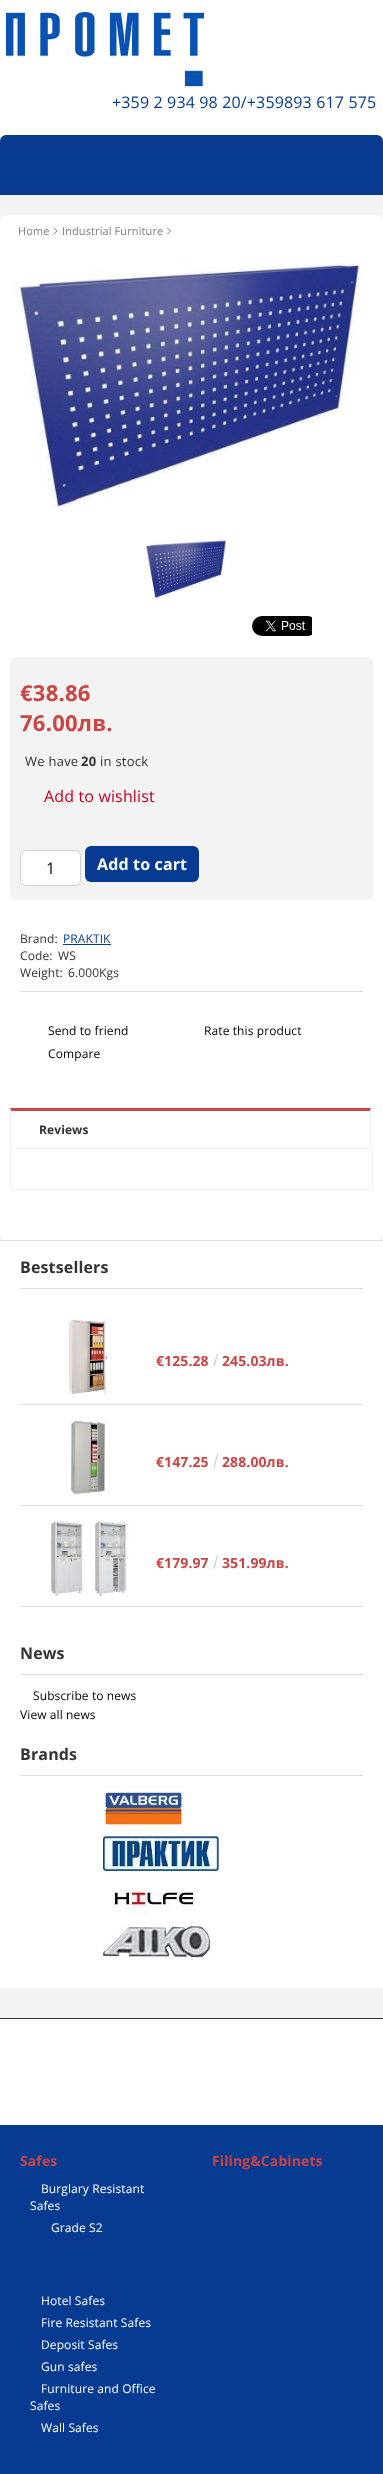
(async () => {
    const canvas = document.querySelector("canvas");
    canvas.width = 383;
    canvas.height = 2474;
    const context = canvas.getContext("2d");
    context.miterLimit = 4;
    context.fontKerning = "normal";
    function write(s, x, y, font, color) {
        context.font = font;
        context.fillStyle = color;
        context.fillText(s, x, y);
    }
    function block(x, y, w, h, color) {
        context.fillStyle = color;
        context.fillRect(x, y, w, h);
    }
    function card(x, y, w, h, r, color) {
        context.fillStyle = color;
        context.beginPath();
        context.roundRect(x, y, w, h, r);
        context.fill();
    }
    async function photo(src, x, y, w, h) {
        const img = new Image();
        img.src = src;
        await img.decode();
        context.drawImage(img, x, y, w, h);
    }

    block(0, 0, 383, 2474, "rgb(243, 243, 243)");
    block(0, 0, 383, 141, "rgb(255, 255, 255)");
    await photo("media/1.png", 6, 12, 198, 75);
    context.letterSpacing = "0.15px";
    write("+359 2 934 98 20/+359893 617 575", 112, 108, "16px Open Sans", "rgb(6, 59, 145)");
    context.beginPath();
    context.roundRect(0, 135, 383, 60, [6, 6, 0, 0]);
    context.fill();
    card(0, 215, 383, 1025, 6, "rgb(255, 255, 255)");
    context.letterSpacing = "0.1px";
    write("Home", 18, 235, "11px Open Sans", "rgb(128, 128, 128)");
    context.beginPath();
    context.moveTo(53.5, 228);
    context.lineTo(54, 227.5);
    context.lineTo(57.5, 231);
    context.lineTo(57, 231.5);
    context.closePath();
    context.fill();
    context.beginPath();
    context.moveTo(53.5, 234);
    context.lineTo(57, 230.5);
    context.lineTo(57.5, 231);
    context.lineTo(54, 234.5);
    context.closePath();
    context.fill();
    write("Industrial Furniture", 62, 235, "11px Open Sans", "rgb(128, 128, 128)");
    context.beginPath();
    context.moveTo(167, 228);
    context.lineTo(167.5, 227.5);
    context.lineTo(171, 231);
    context.lineTo(170.5, 231.5);
    context.closePath();
    context.fill();
    context.beginPath();
    context.moveTo(167, 234);
    context.lineTo(170.5, 230.5);
    context.lineTo(171, 231);
    context.lineTo(167.5, 234.5);
    context.closePath();
    context.fill();
    await photo("media/2.png", 10, 253, 359, 263);
    await photo("media/3.png", 144, 538, 85, 64);
    await photo("media/4.png", 252, 616, 60, 20);
    card(10, 657, 363, 243, 6, "rgb(243, 243, 243)");
    context.letterSpacing = "0.25px";
    write("€38.86", 20, 701, "bold 22px Open Sans", "rgb(204, 69, 69)");
    write("76.00лв.", 20, 731, "bold 22px Open Sans", "rgb(204, 69, 69)");
    write("We have", 25, 766, "13px Open Sans", "rgb(51, 51, 51)");
    write("20", 81, 766, "bold 13px Open Sans", "rgb(51, 51, 51)");
    write("in stock", 100, 766, "13px Open Sans", "rgb(51, 51, 51)");
    context.letterSpacing = "0.15px";
    write("Add to wishlist", 44, 802, "16px Open Sans", "rgb(202, 0, 29)");
    context.fillStyle = "rgb(255, 255, 255)";
    context.beginPath();
    context.roundRect(20.5, 850.5, 60, 35, 5.5);
    context.fill();
    context.strokeStyle = "rgb(210, 210, 210)";
    context.stroke();
    write("1", 46, 874, "16px Open Sans", "rgb(0, 0, 0)");
    card(85, 846, 114, 36, 6, "rgb(6, 59, 145)");
    write("Add to cart", 97, 870, "bold 16px Open Sans", "rgb(255, 255, 255)");
    block(20, 991, 343, 1, "rgb(221, 221, 221)");
    context.letterSpacing = "0.1px";
    write("Brand:", 20, 943, "12px Open Sans", "rgb(51, 51, 51)");
    write("PRAKTIK", 63, 943, "12px Open Sans", "rgb(6, 59, 145)");
    block(63, 944, 48, 1, "rgb(6, 59, 145)");
    write("Code:", 20, 960, "12px Open Sans", "rgb(51, 51, 51)");
    write("WS", 58, 960, "12px Open Sans", "rgb(51, 51, 51)");
    write("Weight:", 20, 977, "12px Open Sans", "rgb(51, 51, 51)");
    write("6.000Kgs", 68, 977, "12px Open Sans", "rgb(51, 51, 51)");
    write("Send to friend", 48, 1035, "12px Open Sans", "rgb(0, 0, 0)");
    write("Rate this product", 204, 1035, "12px Open Sans", "rgb(0, 0, 0)");
    write("Compare", 48, 1058, "12px Open Sans", "rgb(0, 0, 0)");
    context.fillStyle = "rgb(204, 69, 69)";
    context.beginPath();
    context.moveTo(10, 1108);
    context.lineTo(371, 1108);
    context.lineTo(370, 1111);
    context.lineTo(11, 1111);
    context.closePath();
    context.fill();
    context.fillStyle = "rgb(241, 241, 241)";
    context.beginPath();
    context.moveTo(371, 1108);
    context.lineTo(371, 1148);
    context.lineTo(370, 1148);
    context.lineTo(370, 1111);
    context.closePath();
    context.fill();
    context.beginPath();
    context.moveTo(10, 1148);
    context.lineTo(10, 1108);
    context.lineTo(11, 1111);
    context.lineTo(11, 1148);
    context.closePath();
    context.fill();
    write("Reviews", 39, 1134, "bold 12px Open Sans", "rgb(51, 51, 51)");
    context.strokeStyle = "rgb(241, 241, 241)";
    context.strokeRect(10.5, 1148.5, 362, 41);
    block(0, 1241, 383, 747, "rgb(255, 255, 255)");
    block(0, 1240, 383, 1, "rgb(221, 221, 221)");
    block(20, 1288, 343, 1, "rgb(221, 221, 221)");
    context.letterSpacing = "0.15px";
    write("Bestsellers", 20, 1273, "bold 16px Open Sans", "rgb(51, 51, 51)");
    block(20, 1404, 343, 1, "rgb(221, 221, 221)");
    await photo("media/5.png", 66, 1319, 45, 75);
    context.letterSpacing = "0.1px";
    write("€125.28", 156, 1366, "bold 14px Open Sans", "rgb(204, 69, 69)");
    context.fillStyle = "rgb(203, 203, 203)";
    context.beginPath();
    context.moveTo(217, 1353);
    context.lineTo(218, 1353.5);
    context.lineTo(214.5, 1367);
    context.lineTo(213.5, 1366.5);
    context.closePath();
    context.fill();
    write("245.03лв.", 222, 1366, "bold 14px Open Sans", "rgb(204, 69, 69)");
    block(20, 1505, 343, 1, "rgb(221, 221, 221)");
    await photo("media/6.png", 70, 1420, 36, 75);
    write("€147.25", 156, 1467, "bold 14px Open Sans", "rgb(204, 69, 69)");
    context.fillStyle = "rgb(203, 203, 203)";
    context.beginPath();
    context.moveTo(217, 1454);
    context.lineTo(218, 1454.5);
    context.lineTo(214.5, 1468);
    context.lineTo(213.5, 1467.5);
    context.closePath();
    context.fill();
    write("288.00лв.", 222, 1467, "bold 14px Open Sans", "rgb(204, 69, 69)");
    block(20, 1606, 343, 1, "rgb(221, 221, 221)");
    await photo("media/7.png", 49, 1521, 80, 75);
    write("€179.97", 156, 1568, "bold 14px Open Sans", "rgb(204, 69, 69)");
    context.fillStyle = "rgb(203, 203, 203)";
    context.beginPath();
    context.moveTo(217, 1555);
    context.lineTo(218, 1555.5);
    context.lineTo(214.5, 1569);
    context.lineTo(213.5, 1568.5);
    context.closePath();
    context.fill();
    write("351.99лв.", 222, 1568, "bold 14px Open Sans", "rgb(204, 69, 69)");
    block(20, 1674, 343, 1, "rgb(221, 221, 221)");
    context.letterSpacing = "0.15px";
    write("News", 20, 1659, "bold 16px Open Sans", "rgb(51, 51, 51)");
    context.letterSpacing = "0.1px";
    write("Subscribe to news", 33, 1700, "12px Open Sans", "rgb(0, 0, 0)");
    write("View all news", 20, 1719, "12px Open Sans", "rgb(0, 0, 0)");
    block(20, 1775, 343, 1, "rgb(221, 221, 221)");
    context.letterSpacing = "0.15px";
    write("Brands", 20, 1760, "bold 16px Open Sans", "rgb(51, 51, 51)");
    await photo("media/8.png", 103, 1791, 81, 35);
    await photo("media/9.png", 103, 1836, 116, 35);
    await photo("media/10.png", 114, 1889, 79, 26);
    await photo("media/11.png", 103, 1926, 108, 32);
    block(0, 2019, 383, 106, "rgb(255, 255, 255)");
    block(0, 2018, 383, 1, "rgb(51, 51, 51)");
    block(0, 2125, 383, 349, "rgb(6, 59, 145)");
    context.letterSpacing = "0.1px";
    write("Safes", 20, 2166, "bold 14px Open Sans", "rgb(204, 69, 69)");
    write("Burglary Resistant", 41, 2193, "12px Open Sans", "rgb(255, 255, 255)");
    write("Safes", 30, 2210, "12px Open Sans", "rgb(255, 255, 255)");
    write("Grade S2", 51, 2232, "12px Open Sans", "rgb(255, 255, 255)");
    write("Hotel Safes", 41, 2305, "12px Open Sans", "rgb(255, 255, 255)");
    write("Fire Resistant Safes", 41, 2327, "12px Open Sans", "rgb(255, 255, 255)");
    write("Deposit Safes", 41, 2349, "12px Open Sans", "rgb(255, 255, 255)");
    write("Gun safes", 41, 2371, "12px Open Sans", "rgb(255, 255, 255)");
    write("Furniture and Office", 41, 2393, "12px Open Sans", "rgb(255, 255, 255)");
    write("Safes", 30, 2410, "12px Open Sans", "rgb(255, 255, 255)");
    write("Wall Safes", 41, 2432, "12px Open Sans", "rgb(255, 255, 255)");
    write("Filing&Cabinets", 212, 2166, "bold 14px Open Sans", "rgb(204, 69, 69)");
})();
